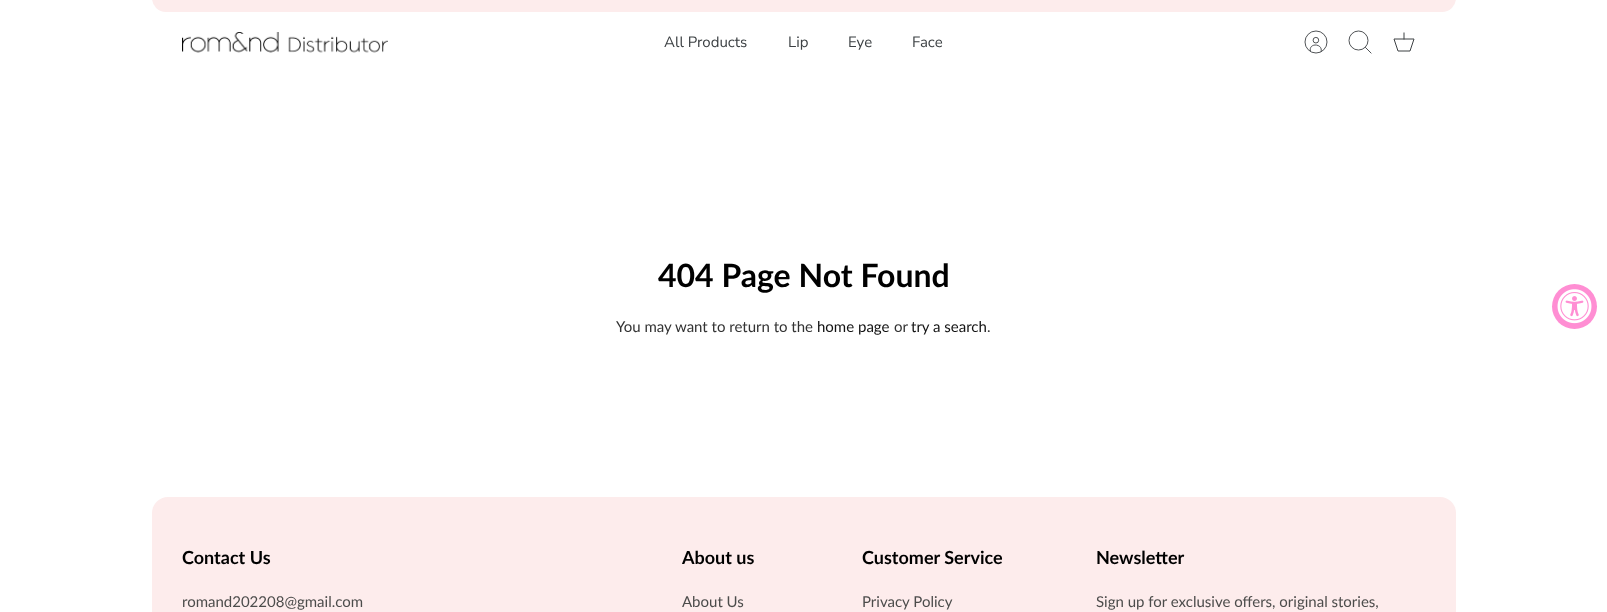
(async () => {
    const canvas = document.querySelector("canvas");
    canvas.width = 1607;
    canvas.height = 612;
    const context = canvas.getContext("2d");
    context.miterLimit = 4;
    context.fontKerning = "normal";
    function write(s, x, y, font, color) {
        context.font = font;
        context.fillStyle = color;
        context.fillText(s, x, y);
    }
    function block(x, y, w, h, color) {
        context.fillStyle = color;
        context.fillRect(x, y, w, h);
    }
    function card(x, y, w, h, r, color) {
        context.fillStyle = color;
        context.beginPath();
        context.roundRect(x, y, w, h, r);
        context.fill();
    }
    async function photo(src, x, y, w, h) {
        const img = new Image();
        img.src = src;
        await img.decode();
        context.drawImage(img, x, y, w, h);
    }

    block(0, 0, 1607, 612, "rgb(255, 255, 255)");
    card(152, -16, 1304, 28, 16, "rgb(253, 236, 236)");
    await photo("media/1.png", 182, 32, 206, 21);
    write("All Products", 664, 47, "15px Nunito Sans", "rgb(60, 64, 67)");
    write("Lip", 788, 47, "15px Nunito Sans", "rgb(60, 64, 67)");
    write("Eye", 848, 47, "15px Nunito Sans", "rgb(60, 64, 67)");
    write("Face", 912, 47, "15px Nunito Sans", "rgb(60, 64, 67)");
    context.beginPath();
    context.moveTo(1321, 52);
    context.bezierCurveTo(1323.5, 43, 1308, 42.5, 1310.5, 51.5);
    context.strokeStyle = "rgb(60, 64, 67)";
    context.lineWidth = 0.9;
    context.stroke();
    context.beginPath();
    context.arc(1315.9, 40.2, 2.8, 0, Math.PI * 2);
    context.stroke();
    context.beginPath();
    context.arc(1316, 42, 11, 0, Math.PI * 2);
    context.stroke();
    context.beginPath();
    context.arc(1358.5, 40.5, 9.5, 0, Math.PI * 2);
    context.stroke();
    context.beginPath();
    context.moveTo(1365.5, 47.5);
    context.lineTo(1371, 53);
    context.lineCap = "square";
    context.stroke();
    context.beginPath();
    context.moveTo(1394, 39);
    context.lineTo(1414, 39);
    context.lineTo(1410, 51);
    context.lineTo(1398, 51);
    context.closePath();
    context.lineWidth = 1;
    context.lineCap = "butt";
    context.stroke();
    context.beginPath();
    context.moveTo(1404, 39);
    context.lineTo(1404, 33);
    context.lineCap = "square";
    context.stroke();
    write("404 Page Not Found", 658, 287, "bold 32px Lato", "rgb(0, 0, 0)");
    write("You may want to return to the", 616, 332, "15px Lato", "rgb(51, 51, 51)");
    write("home page", 817, 332, "15px Lato", "rgb(18, 18, 18)");
    write("or", 894, 332, "15px Lato", "rgb(51, 51, 51)");
    write("try a search", 911, 332, "15px Lato", "rgb(18, 18, 18)");
    write(".", 987, 332, "15px Lato", "rgb(51, 51, 51)");
    context.fillStyle = "rgb(255, 142, 211)";
    context.beginPath();
    context.arc(1574.5, 306.5, 22.5, 0, Math.PI * 2);
    context.fill();
    await photo("media/2.png", 1557, 289, 35, 35);
    card(152, 497, 1304, 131, 16, "rgb(253, 236, 236)");
    write("Contact Us", 182, 564, "bold 18px Lato", "rgb(0, 0, 0)");
    write("romand202208@gmail.com", 182, 607, "15px Lato", "rgb(76, 76, 75)");
    write("About us", 682, 564, "bold 18px Lato", "rgb(0, 0, 0)");
    write("About Us", 682, 607, "15px Lato", "rgb(76, 76, 75)");
    write("Customer Service", 862, 564, "bold 18px Lato", "rgb(0, 0, 0)");
    write("Privacy Policy", 862, 607, "15px Lato", "rgb(76, 76, 75)");
    write("Newsletter", 1096, 564, "bold 18px Lato", "rgb(0, 0, 0)");
    write("Sign up for exclusive offers, original stories,", 1096, 607, "15px Lato", "rgb(76, 76, 75)");
})();
